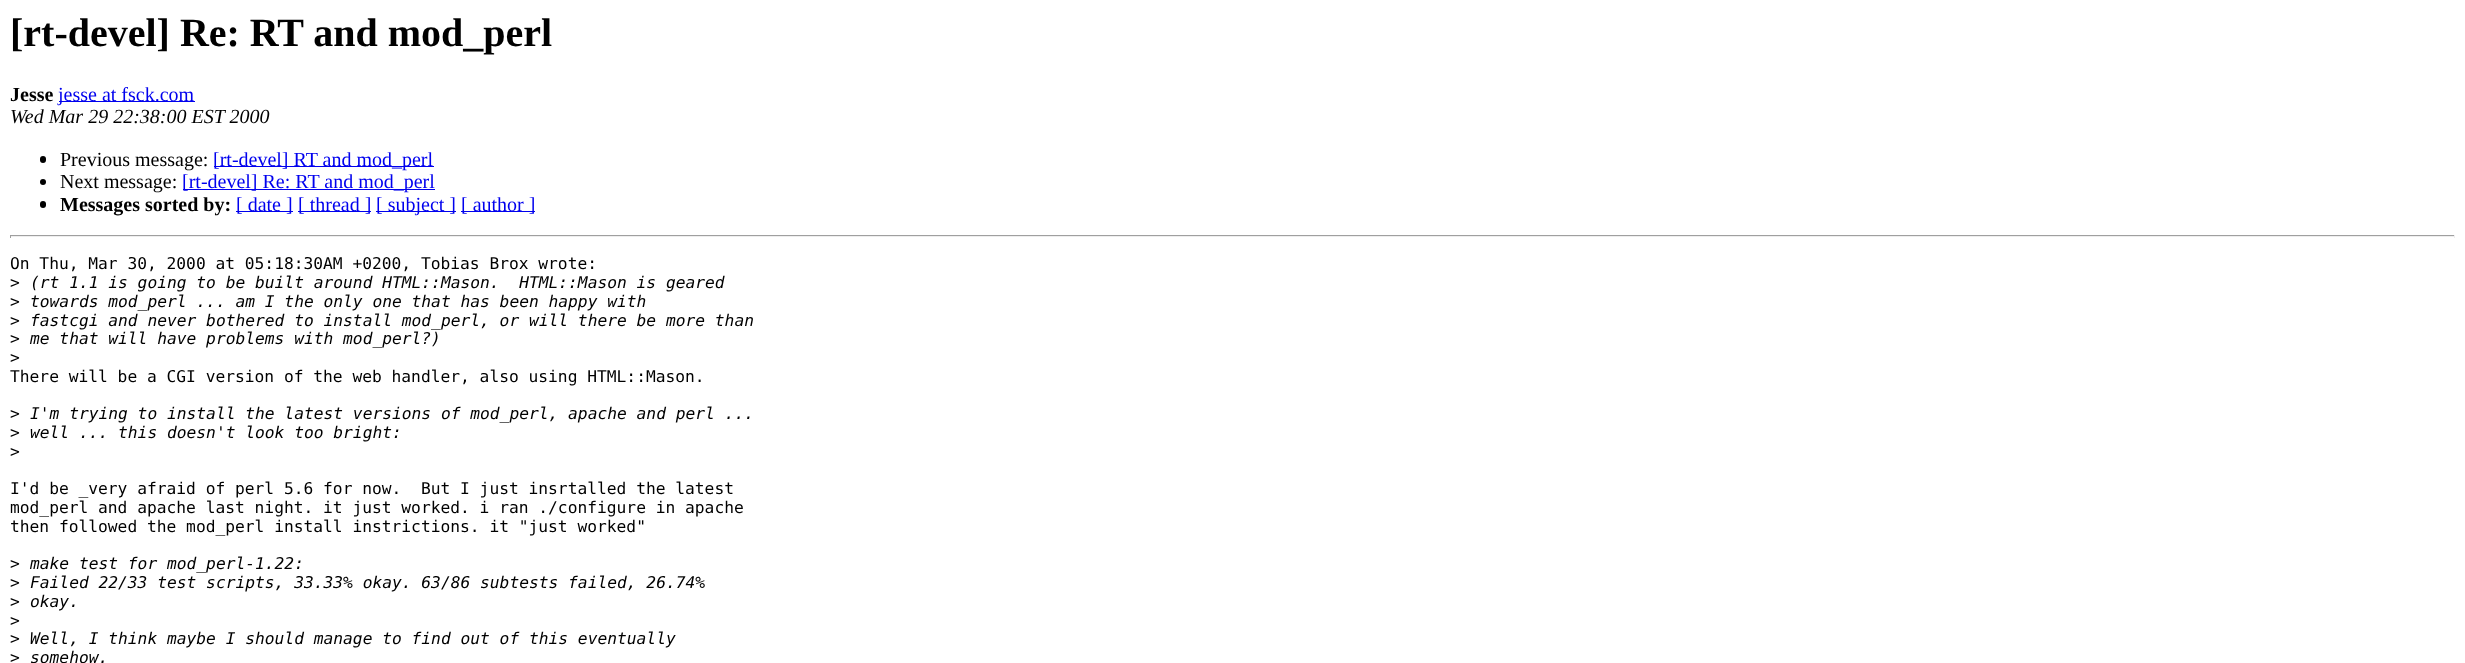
(async () => {
    const canvas = document.querySelector("canvas");
    canvas.width = 2465;
    canvas.height = 663;
    const context = canvas.getContext("2d");
    context.miterLimit = 4;
    context.fontKerning = "normal";
    function write(s, x, y, font, color) {
        context.font = font;
        context.fillStyle = color;
        context.fillText(s, x, y);
    }
    function block(x, y, w, h, color) {
        context.fillStyle = color;
        context.fillRect(x, y, w, h);
    }
    function card(x, y, w, h, r, color) {
        context.fillStyle = color;
        context.beginPath();
        context.roundRect(x, y, w, h, r);
        context.fill();
    }

    block(0, 0, 2465, 663, "rgb(255, 255, 255)");
    write("[rt-devel] Re: RT and mod_perl", 10, 46, "bold 40px Liberation Serif", "rgb(0, 0, 0)");
    write("Jesse", 10, 101, "bold 20px Liberation Serif", "rgb(0, 0, 0)");
    block(59, 101, 136, 1, "rgb(0, 0, 238)");
    write("jesse at fsck.com", 58, 101, "20px Liberation Serif", "rgb(0, 0, 238)");
    write("Wed Mar 29 22:38:00 EST 2000", 10, 123, "italic 20px Liberation Serif", "rgb(0, 0, 0)");
    card(40, 156, 6, 7, 3, "rgb(0, 0, 0)");
    write("Previous message:", 60, 166, "20px Liberation Serif", "rgb(0, 0, 0)");
    block(214, 166, 220, 1, "rgb(0, 0, 238)");
    write("[rt-devel] RT and mod_perl", 213, 166, "20px Liberation Serif", "rgb(0, 0, 238)");
    context.fillStyle = "rgb(0, 0, 0)";
    context.beginPath();
    context.arc(43, 182, 3, 0, Math.PI * 2);
    context.fill();
    write("Next message:", 60, 188, "20px Liberation Serif", "rgb(0, 0, 0)");
    block(183, 189, 252, 1, "rgb(0, 0, 238)");
    write("[rt-devel] Re: RT and mod_perl", 182, 188, "20px Liberation Serif", "rgb(0, 0, 238)");
    card(40, 201, 6, 7, 3, "rgb(0, 0, 0)");
    write("Messages sorted by:", 60, 211, "bold 20px Liberation Serif", "rgb(0, 0, 0)");
    block(236, 211, 57, 1, "rgb(0, 0, 238)");
    write("[ date ]", 236, 211, "20px Liberation Serif", "rgb(0, 0, 238)");
    block(298, 211, 73, 1, "rgb(0, 0, 238)");
    write("[ thread ]", 298, 211, "20px Liberation Serif", "rgb(0, 0, 238)");
    block(376, 211, 80, 1, "rgb(0, 0, 238)");
    write("[ subject ]", 376, 211, "20px Liberation Serif", "rgb(0, 0, 238)");
    block(461, 211, 74, 1, "rgb(0, 0, 238)");
    write("[ author ]", 461, 211, "20px Liberation Serif", "rgb(0, 0, 238)");
    block(10, 235, 2445, 1, "rgb(159, 159, 159)");
    block(2454, 235, 1, 3, "rgb(238, 238, 238)");
    block(10, 236, 2445, 1, "rgb(238, 238, 238)");
    block(10, 235, 1, 3, "rgb(159, 159, 159)");
    write("On Thu, Mar 30, 2000 at 05:18:30AM +0200, Tobias Brox wrote:", 10, 269, "16.25px DejaVu Sans Mono", "rgb(0, 0, 0)");
    write(">", 10, 288, "16.25px DejaVu Sans Mono", "rgb(0, 0, 0)");
    write("(rt 1.1 is going to be built around HTML::Mason.  HTML::Mason is geared", 30, 288, "italic 16.25px DejaVu Sans Mono", "rgb(0, 0, 0)");
    write(">", 10, 307, "16.25px DejaVu Sans Mono", "rgb(0, 0, 0)");
    write("towards mod_perl ... am I the only one that has been happy with", 30, 307, "italic 16.25px DejaVu Sans Mono", "rgb(0, 0, 0)");
    write(">", 10, 326, "16.25px DejaVu Sans Mono", "rgb(0, 0, 0)");
    write("fastcgi and never bothered to install mod_perl, or will there be more than", 30, 326, "italic 16.25px DejaVu Sans Mono", "rgb(0, 0, 0)");
    write(">", 10, 344, "16.25px DejaVu Sans Mono", "rgb(0, 0, 0)");
    write("me that will have problems with mod_perl?)", 30, 344, "italic 16.25px DejaVu Sans Mono", "rgb(0, 0, 0)");
    write(">", 10, 363, "16.25px DejaVu Sans Mono", "rgb(0, 0, 0)");
    write("There will be a CGI version of the web handler, also using HTML::Mason.", 10, 382, "16.25px DejaVu Sans Mono", "rgb(0, 0, 0)");
    write(">", 10, 419, "16.25px DejaVu Sans Mono", "rgb(0, 0, 0)");
    write("I'm trying to install the latest versions of mod_perl, apache and perl ...", 30, 419, "italic 16.25px DejaVu Sans Mono", "rgb(0, 0, 0)");
    write(">", 10, 438, "16.25px DejaVu Sans Mono", "rgb(0, 0, 0)");
    write("well ... this doesn't look too bright:", 30, 438, "italic 16.25px DejaVu Sans Mono", "rgb(0, 0, 0)");
    write(">", 10, 457, "16.25px DejaVu Sans Mono", "rgb(0, 0, 0)");
    write("I'd be _very afraid of perl 5.6 for now.  But I just insrtalled the latest", 10, 494, "16.25px DejaVu Sans Mono", "rgb(0, 0, 0)");
    write("mod_perl and apache last night. it just worked. i ran ./configure in apache", 10, 513, "16.25px DejaVu Sans Mono", "rgb(0, 0, 0)");
    write("then followed the mod_perl install instrictions. it \"just worked\"", 10, 532, "16.25px DejaVu Sans Mono", "rgb(0, 0, 0)");
    write(">", 10, 569, "16.25px DejaVu Sans Mono", "rgb(0, 0, 0)");
    write("make test for mod_perl-1.22:", 30, 569, "italic 16.25px DejaVu Sans Mono", "rgb(0, 0, 0)");
    write(">", 10, 588, "16.25px DejaVu Sans Mono", "rgb(0, 0, 0)");
    write("Failed 22/33 test scripts, 33.33% okay. 63/86 subtests failed, 26.74%", 30, 588, "italic 16.25px DejaVu Sans Mono", "rgb(0, 0, 0)");
    write(">", 10, 607, "16.25px DejaVu Sans Mono", "rgb(0, 0, 0)");
    write("okay.", 30, 607, "italic 16.25px DejaVu Sans Mono", "rgb(0, 0, 0)");
    write(">", 10, 626, "16.25px DejaVu Sans Mono", "rgb(0, 0, 0)");
    write(">", 10, 644, "16.25px DejaVu Sans Mono", "rgb(0, 0, 0)");
    write("Well, I think maybe I should manage to find out of this eventually", 30, 644, "italic 16.25px DejaVu Sans Mono", "rgb(0, 0, 0)");
    write(">", 10, 663, "16.25px DejaVu Sans Mono", "rgb(0, 0, 0)");
    write("somehow.", 30, 663, "italic 16.25px DejaVu Sans Mono", "rgb(0, 0, 0)");
})();
